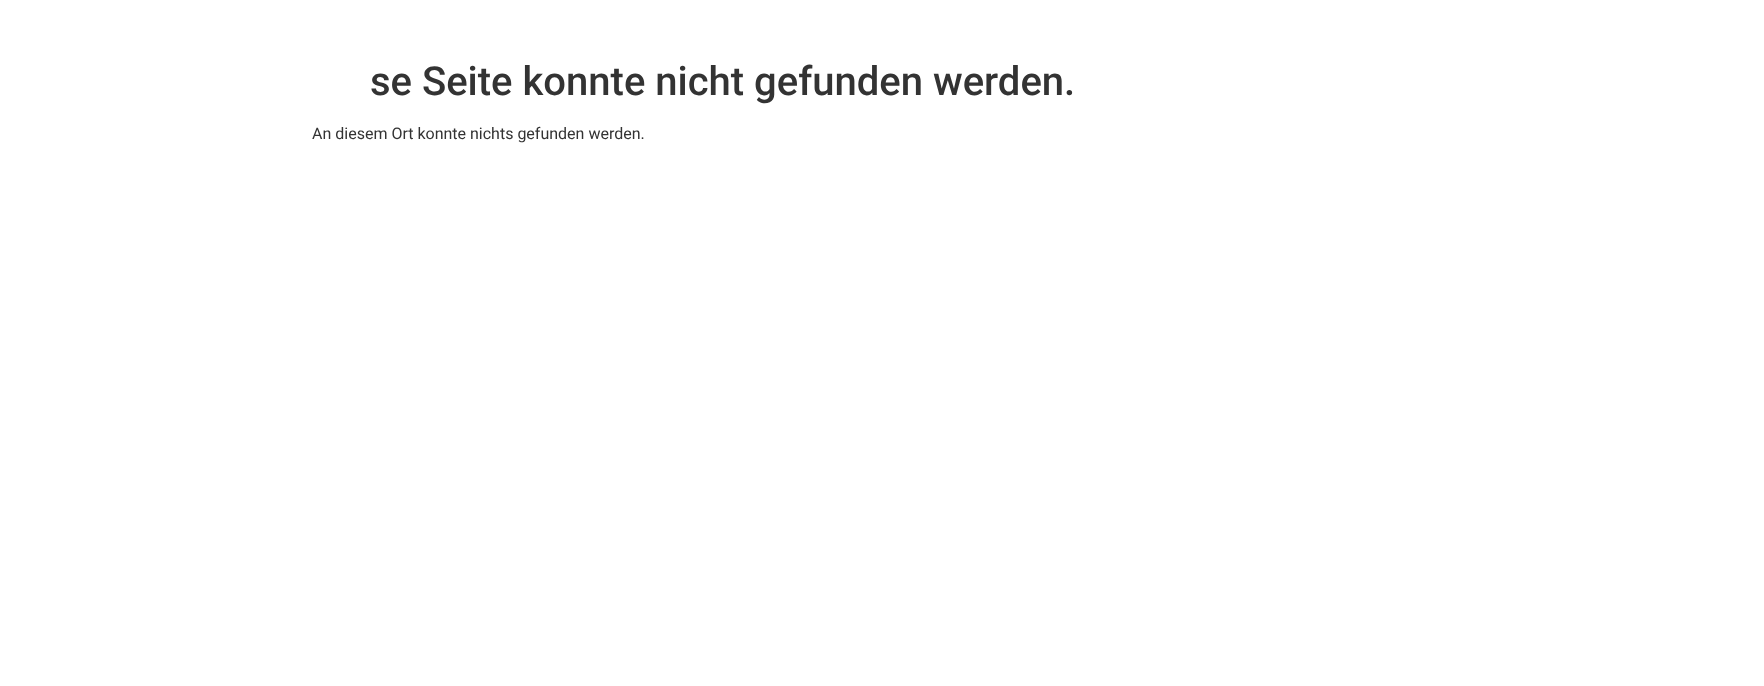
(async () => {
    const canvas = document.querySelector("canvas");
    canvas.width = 1764;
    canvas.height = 686;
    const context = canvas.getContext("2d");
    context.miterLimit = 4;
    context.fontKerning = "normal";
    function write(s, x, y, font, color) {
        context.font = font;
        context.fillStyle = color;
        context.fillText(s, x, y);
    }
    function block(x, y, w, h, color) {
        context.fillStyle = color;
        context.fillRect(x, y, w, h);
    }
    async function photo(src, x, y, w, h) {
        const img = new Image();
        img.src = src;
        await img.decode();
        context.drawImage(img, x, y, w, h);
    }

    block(0, 0, 1764, 686, "rgb(255, 255, 255)");
    write("se Seite konnte nicht gefunden werden.", 370, 95, "500 40px Roboto", "rgb(51, 51, 51)");
    write("An diesem Ort konnte nichts gefunden werden.", 312, 139, "16px Roboto", "rgb(51, 51, 51)");
    await photo("media/1.png", 314, 65, 54, 23);
})();
